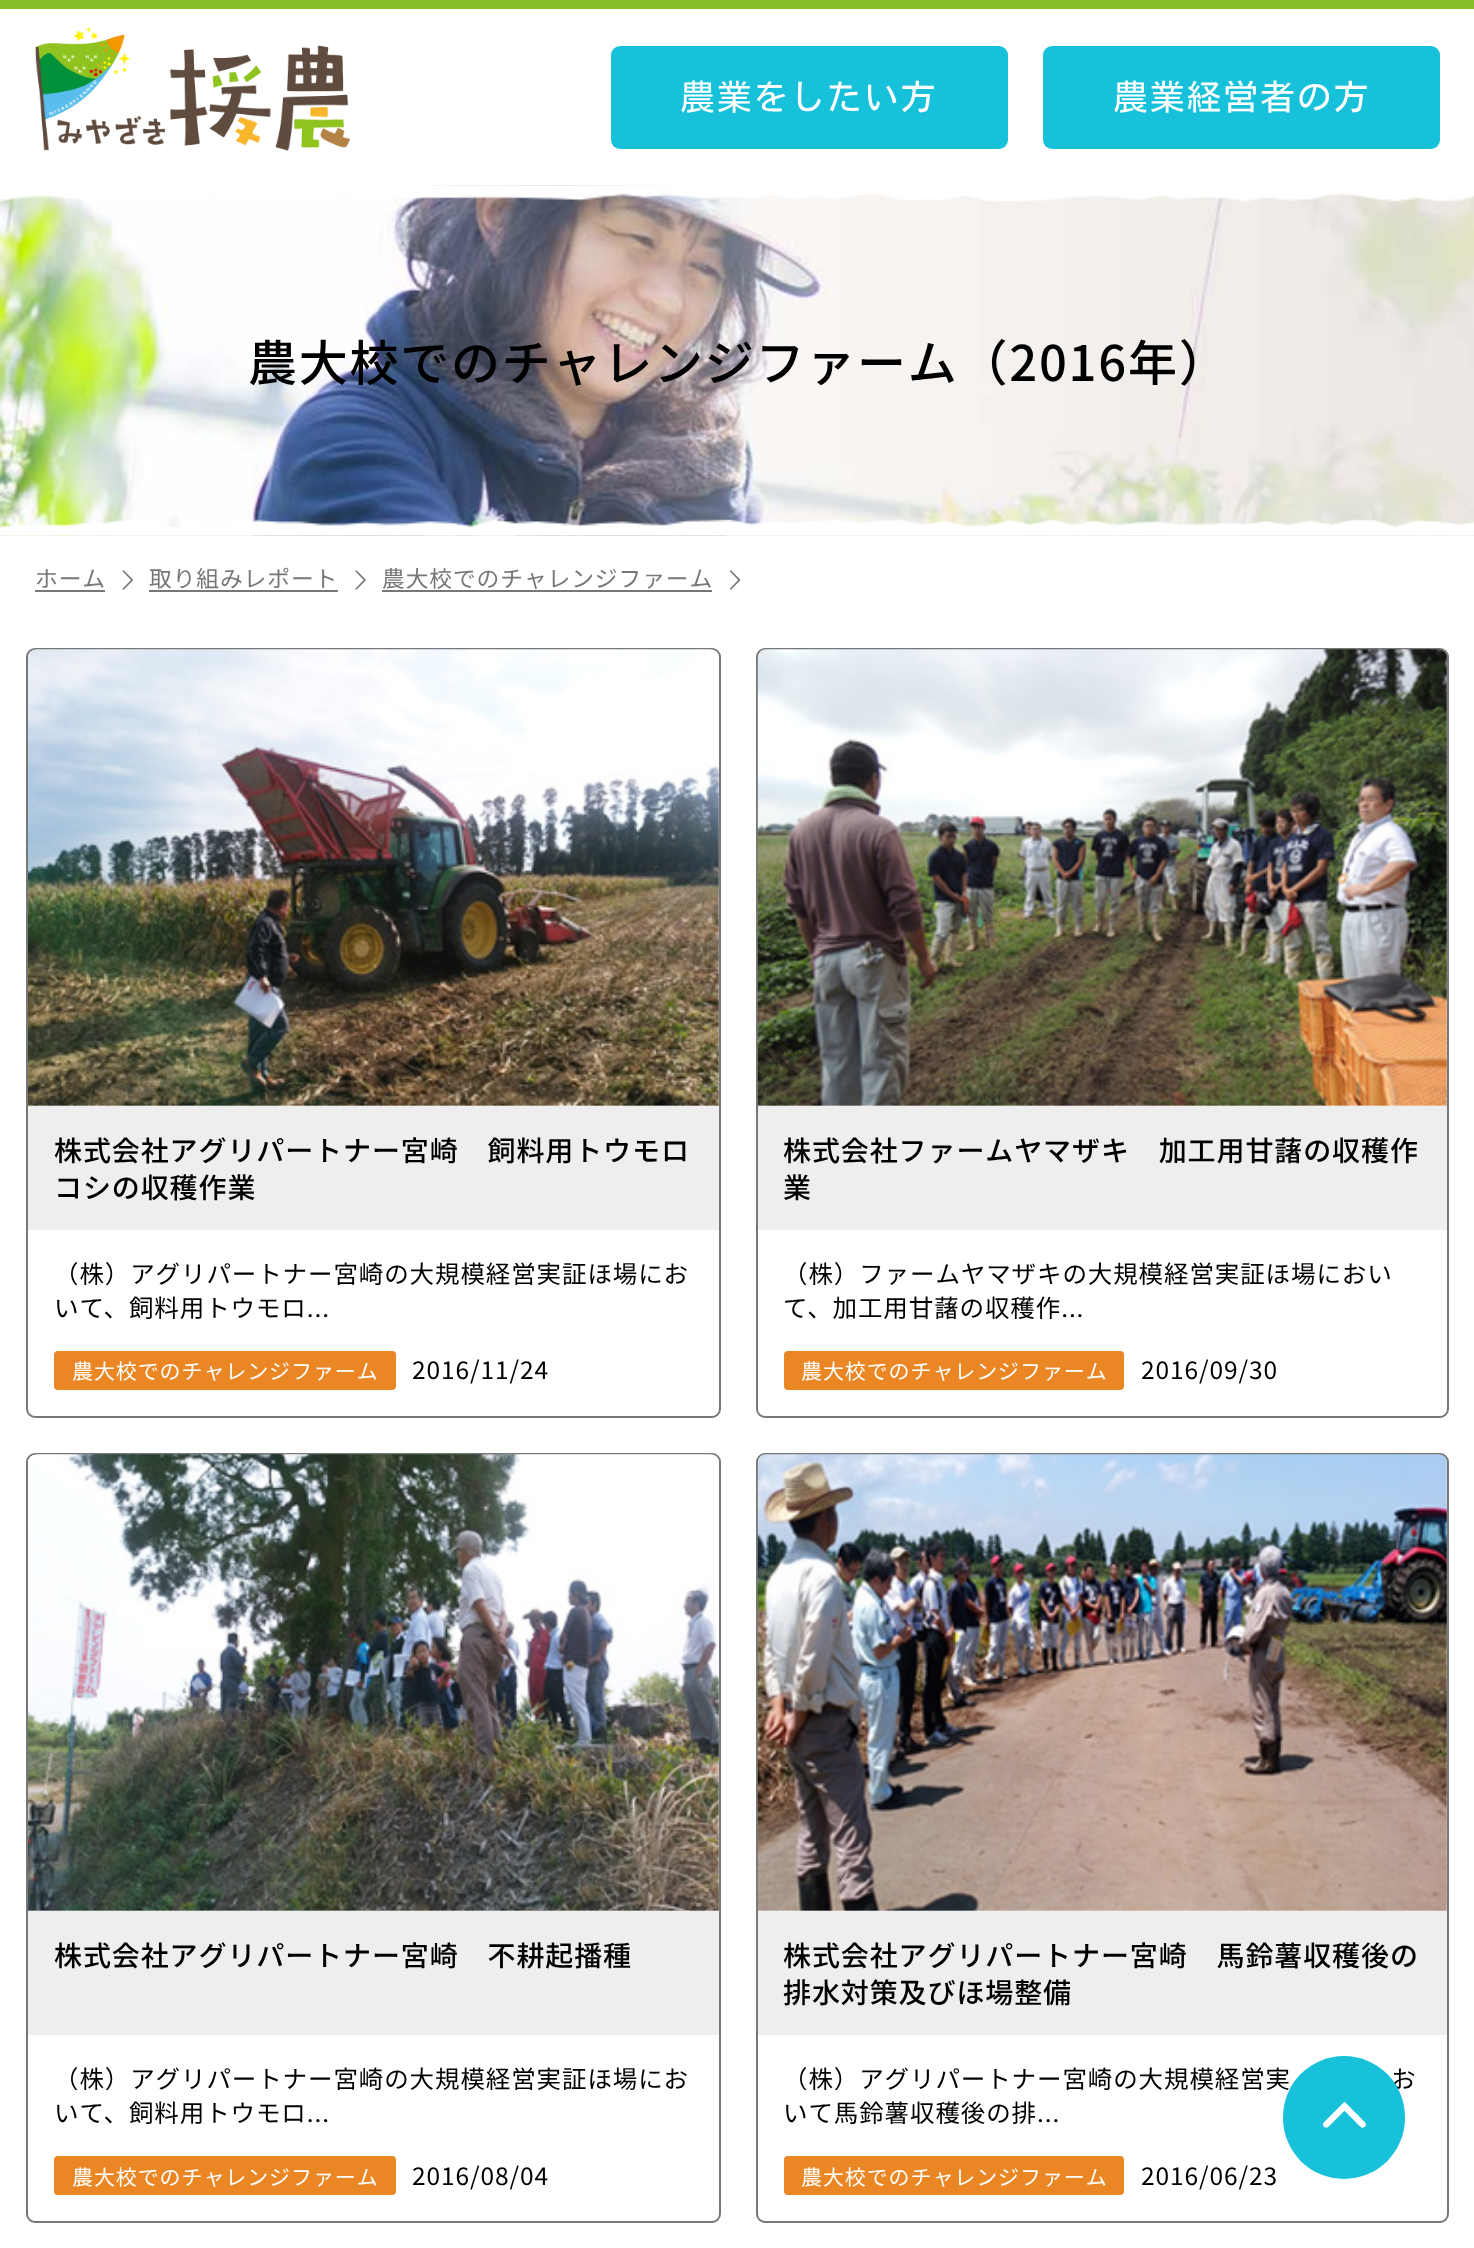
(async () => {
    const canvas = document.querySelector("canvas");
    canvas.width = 1474;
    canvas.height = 2248;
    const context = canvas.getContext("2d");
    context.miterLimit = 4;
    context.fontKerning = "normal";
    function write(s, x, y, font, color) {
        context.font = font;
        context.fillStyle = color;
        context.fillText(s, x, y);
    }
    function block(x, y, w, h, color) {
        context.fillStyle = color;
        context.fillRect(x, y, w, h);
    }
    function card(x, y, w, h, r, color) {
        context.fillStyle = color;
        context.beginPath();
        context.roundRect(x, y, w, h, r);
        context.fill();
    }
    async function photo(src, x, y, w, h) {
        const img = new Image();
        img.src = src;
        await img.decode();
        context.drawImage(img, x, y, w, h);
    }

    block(0, 0, 1474, 2248, "rgb(255, 255, 255)");
    block(0, 0, 1474, 9, "rgb(135, 188, 43)");
    await photo("media/1.png", 35, 27, 315, 124);
    card(611, 46, 397, 103, 9, "rgb(24, 193, 218)");
    context.letterSpacing = "1.75px";
    write("農業をしたい方", 680, 110, "35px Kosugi", "rgb(255, 255, 255)");
    card(1043, 46, 397, 103, 9, "rgb(24, 193, 218)");
    write("農業経営者の方", 1113, 110, "35px Kosugi", "rgb(255, 255, 255)");
    block(0, 535, 1474, 1, "rgb(234, 228, 222)");
    await photo("media/2.png", 0, 185, 1474, 351);
    await photo("media/3.png", 0, 185, 1474, 17);
    write("農大校でのチャレンジファーム（2016年）", 248, 381, "500 49px Noto Sans JP", "rgb(0, 0, 0)");
    await photo("media/4.png", 0, 519, 1474, 17);
    context.letterSpacing = "0.9px";
    write("ホーム", 35, 587, "22.75px Noto Sans JP", "rgb(119, 119, 119)");
    block(35, 590, 70, 2, "rgb(119, 119, 119)");
    await photo("media/5.png", 122, 570, 11, 20);
    write("取り組みレポート", 149, 587, "22.75px Noto Sans JP", "rgb(119, 119, 119)");
    block(149, 590, 189, 2, "rgb(119, 119, 119)");
    await photo("media/6.png", 355, 570, 11, 20);
    write("農大校でのチャレンジファーム", 382, 587, "22.75px Noto Sans JP", "rgb(119, 119, 119)");
    block(382, 590, 330, 2, "rgb(119, 119, 119)");
    await photo("media/7.png", 729, 570, 12, 20);
    context.beginPath();
    context.roundRect(27, 649, 693, 768, 8);
    context.strokeStyle = "rgb(119, 119, 119)";
    context.lineWidth = 2;
    context.stroke();
    await photo("media/8.png", 28, 649, 691, 457);
    block(28, 1106, 691, 124, "rgb(238, 238, 238)");
    write("株式会社アグリパートナー宮崎　飼料用トウモロ", 54, 1161, "500 28px Noto Sans JP", "rgb(0, 0, 0)");
    write("コシの収穫作業", 54, 1198, "500 28px Noto Sans JP", "rgb(0, 0, 0)");
    write("（株）アグリパートナー宮崎の大規模経営実証ほ場にお", 54, 1283, "24.5px Noto Sans JP", "rgb(0, 0, 0)");
    write("いて、飼料用トウモロ...", 54, 1317, "24.5px Noto Sans JP", "rgb(0, 0, 0)");
    card(54, 1351, 342, 39, 4, "rgb(234, 135, 36)");
    write("農大校でのチャレンジファーム", 72, 1379, "21px Noto Sans JP", "rgb(255, 255, 255)");
    write("2016/11/24", 412, 1379, "24.5px Noto Sans JP", "rgb(0, 0, 0)");
    context.beginPath();
    context.roundRect(757, 649, 691, 768, 8);
    context.stroke();
    await photo("media/9.png", 757, 649, 690, 457);
    block(758, 1106, 689, 124, "rgb(238, 238, 238)");
    write("株式会社ファームヤマザキ　加工用甘藷の収穫作", 783, 1161, "500 28px Noto Sans JP", "rgb(0, 0, 0)");
    write("業", 783, 1198, "500 28px Noto Sans JP", "rgb(0, 0, 0)");
    write("（株）ファームヤマザキの大規模経営実証ほ場におい", 783, 1283, "24.5px Noto Sans JP", "rgb(0, 0, 0)");
    write("て、加工用甘藷の収穫作...", 783, 1317, "24.5px Noto Sans JP", "rgb(0, 0, 0)");
    card(784, 1351, 340, 39, 4, "rgb(234, 135, 36)");
    write("農大校でのチャレンジファーム", 801, 1379, "21px Noto Sans JP", "rgb(255, 255, 255)");
    write("2016/09/30", 1141, 1379, "24.5px Noto Sans JP", "rgb(0, 0, 0)");
    context.beginPath();
    context.roundRect(27, 1454, 693, 768, 8);
    context.stroke();
    await photo("media/10.png", 28, 1454, 691, 457);
    block(28, 1911, 691, 124, "rgb(238, 238, 238)");
    write("株式会社アグリパートナー宮崎　不耕起播種", 54, 1966, "500 28px Noto Sans JP", "rgb(0, 0, 0)");
    write("（株）アグリパートナー宮崎の大規模経営実証ほ場にお", 54, 2088, "24.5px Noto Sans JP", "rgb(0, 0, 0)");
    write("いて、飼料用トウモロ...", 54, 2122, "24.5px Noto Sans JP", "rgb(0, 0, 0)");
    card(54, 2156, 342, 39, 4, "rgb(234, 135, 36)");
    write("農大校でのチャレンジファーム", 72, 2185, "21px Noto Sans JP", "rgb(255, 255, 255)");
    write("2016/08/04", 412, 2185, "24.5px Noto Sans JP", "rgb(0, 0, 0)");
    context.beginPath();
    context.roundRect(757, 1454, 691, 768, 8);
    context.stroke();
    await photo("media/11.png", 757, 1454, 690, 457);
    block(758, 1911, 689, 124, "rgb(238, 238, 238)");
    write("株式会社アグリパートナー宮崎　馬鈴薯収穫後の", 783, 1966, "500 28px Noto Sans JP", "rgb(0, 0, 0)");
    write("排水対策及びほ場整備", 783, 2003, "500 28px Noto Sans JP", "rgb(0, 0, 0)");
    write("（株）アグリパートナー宮崎の大規模経営実", 783, 2088, "24.5px Noto Sans JP", "rgb(0, 0, 0)");
    write("お", 1391, 2088, "24.5px Noto Sans JP", "rgb(0, 0, 0)");
    write("いて馬鈴薯収穫後の排...", 783, 2122, "24.5px Noto Sans JP", "rgb(0, 0, 0)");
    card(784, 2156, 340, 39, 4, "rgb(234, 135, 36)");
    write("農大校でのチャレンジファーム", 801, 2185, "21px Noto Sans JP", "rgb(255, 255, 255)");
    write("2016/06/23", 1141, 2185, "24.5px Noto Sans JP", "rgb(0, 0, 0)");
    card(1283, 2056, 122, 123, 61, "rgb(24, 193, 218)");
    await photo("media/12.png", 1323, 2101, 43, 27);
})();
